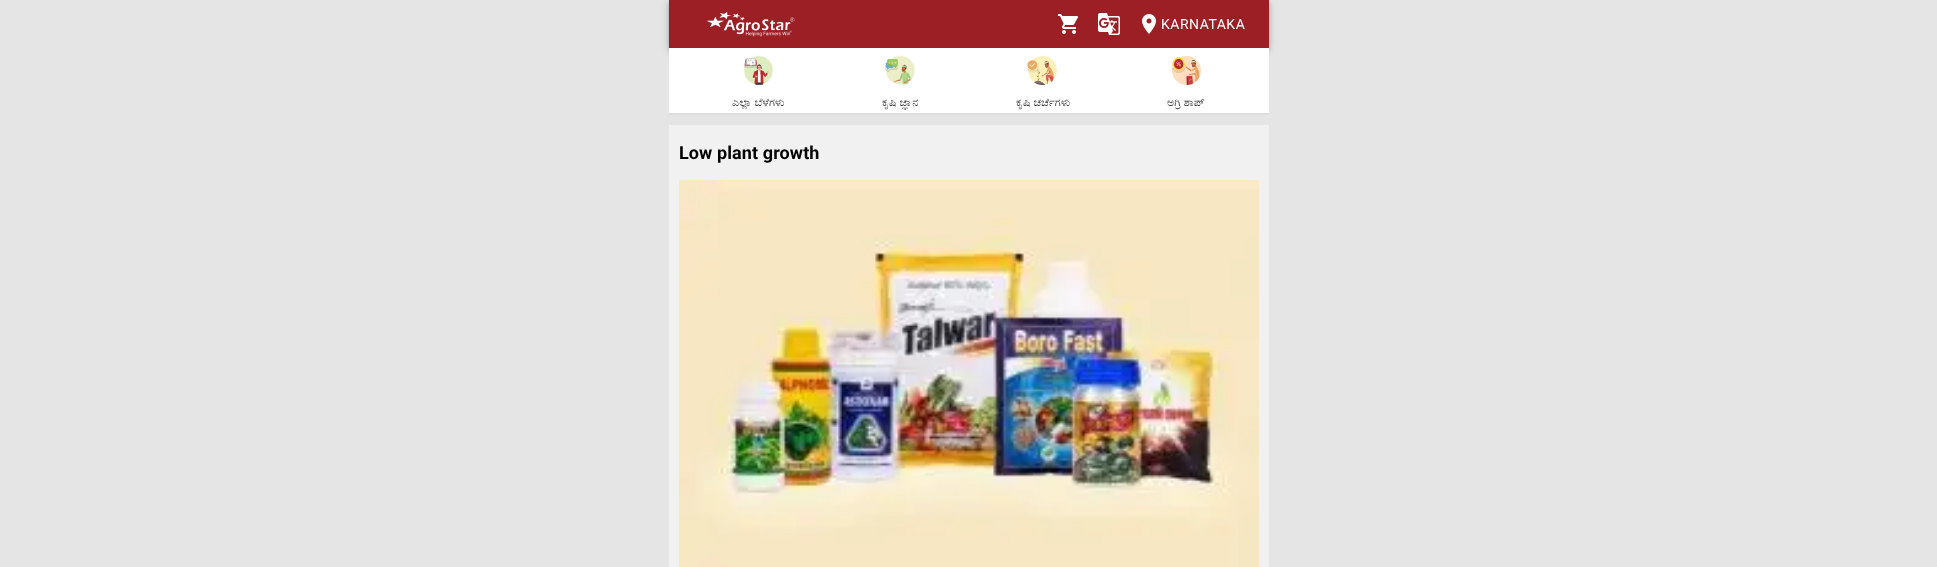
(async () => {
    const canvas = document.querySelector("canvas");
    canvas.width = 1937;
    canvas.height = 567;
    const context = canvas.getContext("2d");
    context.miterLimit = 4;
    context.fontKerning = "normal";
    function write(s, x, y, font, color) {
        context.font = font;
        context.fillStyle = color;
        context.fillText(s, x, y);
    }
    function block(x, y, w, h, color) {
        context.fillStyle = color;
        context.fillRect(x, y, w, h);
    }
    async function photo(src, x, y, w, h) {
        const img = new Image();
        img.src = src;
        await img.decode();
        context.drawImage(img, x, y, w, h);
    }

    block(0, 0, 1937, 567, "rgb(229, 229, 229)");
    context.fillStyle = "rgba(0, 0, 0, 0.12)";
    context.filter = "blur(5px)";
    context.beginPath();
    context.rect(669, 1, 600, 48);
    context.fill();
    context.filter = "none";
    context.fillStyle = "rgba(0, 0, 0, 0.14)";
    context.filter = "blur(2.5px)";
    context.beginPath();
    context.rect(669, 4, 600, 48);
    context.fill();
    context.filter = "none";
    context.fillStyle = "rgba(0, 0, 0, 0.2)";
    context.filter = "blur(2px)";
    context.beginPath();
    context.rect(670, 3, 598, 46);
    context.fill();
    context.filter = "none";
    block(669, 0, 600, 48, "rgb(155, 31, 36)");
    await photo("media/1.png", 706, 12, 89, 25);
    await photo("media/2.png", 1058, 14, 20, 20);
    await photo("media/3.png", 1098, 13, 22, 22);
    await photo("media/4.png", 1142, 14, 14, 20);
    context.letterSpacing = "0.5px";
    write("KARNATAKA", 1161, 29, "14px Roboto", "rgb(255, 255, 255)");
    block(669, 48, 600, 65, "rgb(255, 255, 255)");
    block(669, 113, 600, 2, "rgb(221, 221, 221)");
    await photo("media/5.png", 743, 55, 31, 31);
    context.letterSpacing = "0.1px";
    write("ಎಲ್ಲಾ ಬೆಳೆಗಳು", 732, 106, "11px FreeSerif", "rgb(51, 51, 51)");
    await photo("media/6.png", 885, 55, 31, 30);
    write("ಕೃಷಿ ಜ್ಞಾನ", 882, 106, "11px FreeSerif", "rgb(51, 51, 51)");
    await photo("media/7.png", 1026, 55, 32, 31);
    write("ಕೃಷಿ ಚರ್ಚೆಗಳು", 1016, 106, "11px FreeSerif", "rgb(51, 51, 51)");
    await photo("media/8.png", 1172, 56, 30, 29);
    write("ಅಗ್ರಿ ಶಾಪ್", 1167, 106, "11px FreeSerif", "rgb(51, 51, 51)");
    block(669, 125, 600, 442, "rgb(241, 241, 241)");
    write("Low plant growth", 679, 159, "bold 18px Roboto", "rgb(0, 0, 0)");
    await photo("media/9.png", 679, 180, 580, 387);
})();
